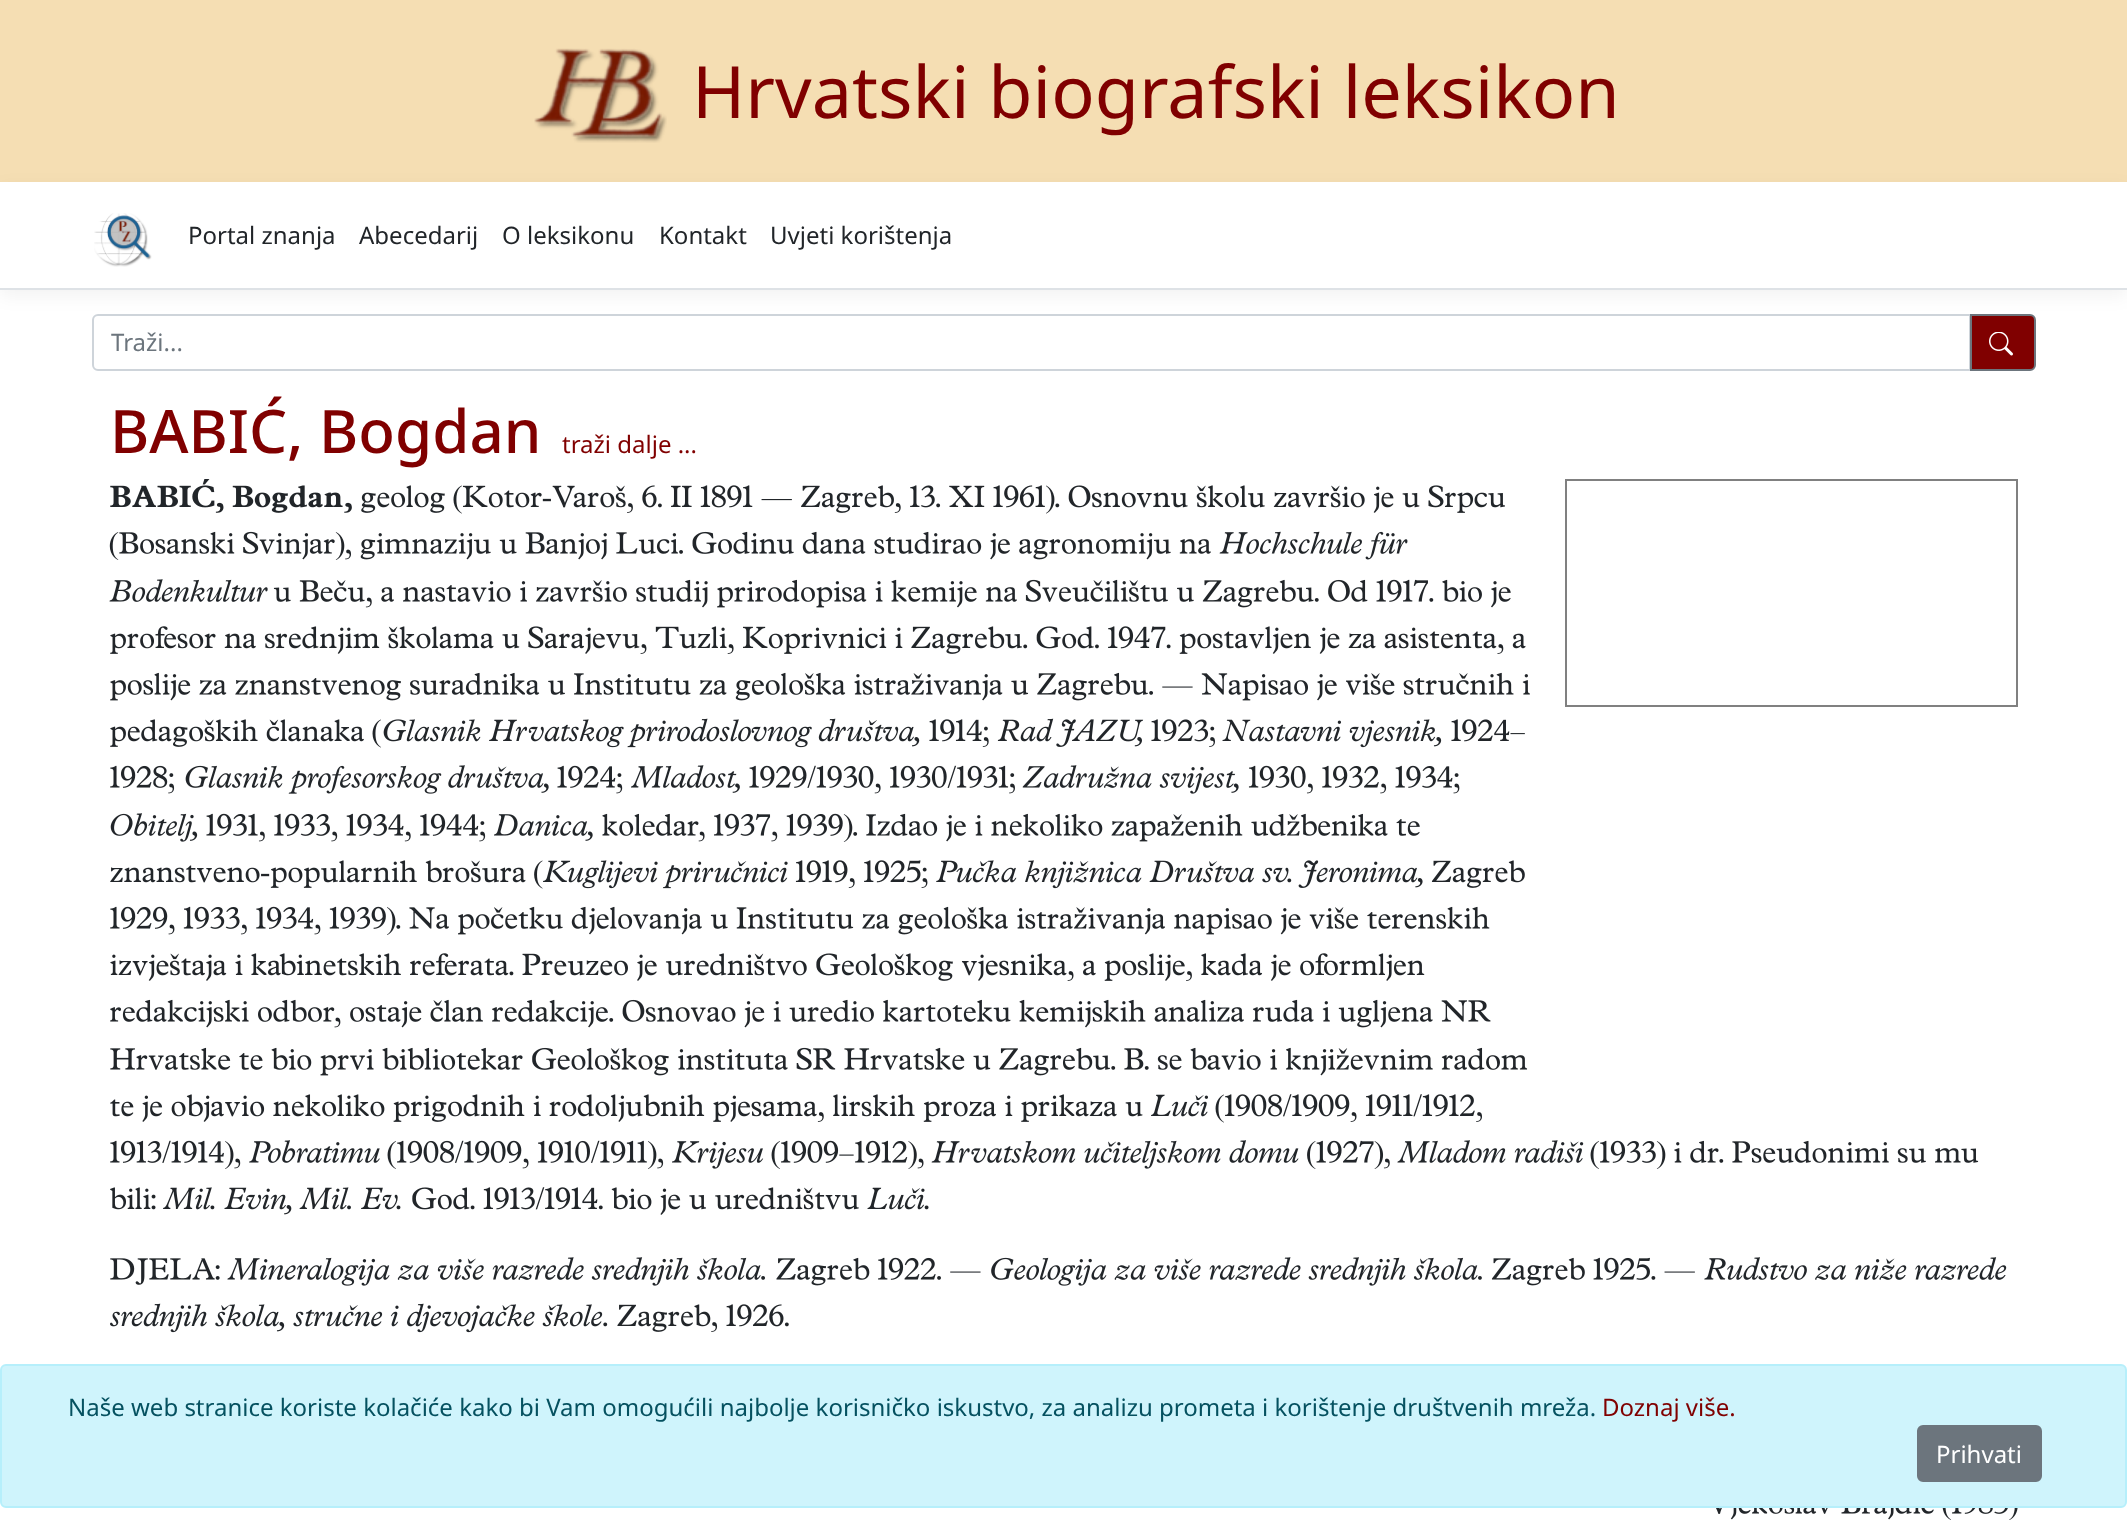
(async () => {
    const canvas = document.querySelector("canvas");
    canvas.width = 2127;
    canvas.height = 1531;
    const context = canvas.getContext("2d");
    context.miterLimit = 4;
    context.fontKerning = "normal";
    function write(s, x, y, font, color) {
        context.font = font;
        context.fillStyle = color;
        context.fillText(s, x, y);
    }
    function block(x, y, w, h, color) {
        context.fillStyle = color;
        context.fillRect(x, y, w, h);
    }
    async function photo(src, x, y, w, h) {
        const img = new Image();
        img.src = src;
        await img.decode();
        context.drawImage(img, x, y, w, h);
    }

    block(0, 0, 2127, 1531, "rgb(255, 255, 255)");
    block(0, 0, 2127, 182, "rgb(245, 222, 179)");
    await photo("media/1.png", 534, 48, 133, 95);
    write("Hrvatski biografski leksikon", 692, 118, "72px Noto Sans", "rgb(128, 0, 0)");
    context.fillStyle = "rgba(0, 0, 0, 0.05)";
    context.filter = "blur(9px)";
    context.beginPath();
    context.rect(0, 188, 2127, 108);
    context.fill();
    context.filter = "none";
    block(0, 182, 2127, 106, "rgb(255, 255, 255)");
    block(0, 288, 2127, 2, "rgb(222, 226, 230)");
    await photo("media/2.png", 94, 213, 58, 54);
    write("Portal znanja", 188, 244, "24px Noto Sans", "rgb(33, 37, 41)");
    write("Abecedarij", 359, 244, "24px Noto Sans", "rgb(33, 37, 41)");
    write("O leksikonu", 502, 244, "24px Noto Sans", "rgb(33, 37, 41)");
    write("Kontakt", 659, 244, "24px Noto Sans", "rgb(33, 37, 41)");
    write("Uvjeti korištenja", 770, 244, "24px Noto Sans", "rgb(33, 37, 41)");
    context.beginPath();
    context.roundRect(93, 315, 1877, 55, [5, 0, 0, 5]);
    context.strokeStyle = "rgb(206, 212, 218)";
    context.lineWidth = 2;
    context.stroke();
    write("Traži...", 111, 351, "24px Noto Sans", "rgb(108, 117, 125)");
    context.fillStyle = "rgb(128, 0, 0)";
    context.beginPath();
    context.roundRect(1971, 315, 64, 55, [0, 5, 5, 0]);
    context.fill();
    context.strokeStyle = "rgb(108, 117, 125)";
    context.stroke();
    await photo("media/3.png", 1989, 332, 24, 24);
    write("BABIĆ, Bogdan", 110, 453, "500 60px Noto Sans", "rgb(128, 0, 0)");
    write("traži dalje ...", 562, 453, "24px Noto Sans", "rgb(128, 0, 0)");
    await photo("media/4.png", 110, 479, 233, 34);
    await photo("media/5.png", 344, 502, 8, 11);
    await photo("media/6.png", 361, 485, 1144, 29);
    await photo("media/7.png", 109, 531, 1102, 29);
    await photo("media/8.png", 1219, 531, 189, 29);
    await photo("media/9.png", 109, 579, 159, 23);
    await photo("media/10.png", 273, 579, 1238, 29);
    await photo("media/11.png", 110, 626, 1416, 28);
    await photo("media/12.png", 110, 672, 1420, 29);
    await photo("media/13.png", 110, 719, 271, 29);
    await photo("media/14.png", 383, 718, 537, 30);
    await photo("media/15.png", 929, 719, 60, 28);
    await photo("media/16.png", 997, 718, 147, 29);
    await photo("media/17.png", 1151, 719, 64, 28);
    await photo("media/18.png", 1222, 719, 220, 29);
    await photo("media/19.png", 1451, 719, 74, 23);
    await photo("media/20.png", 110, 765, 65, 29);
    await photo("media/21.png", 185, 765, 364, 29);
    await photo("media/22.png", 557, 765, 66, 29);
    await photo("media/23.png", 631, 765, 109, 28);
    await photo("media/24.png", 749, 765, 266, 29);
    await photo("media/25.png", 1022, 765, 217, 29);
    await photo("media/26.png", 1248, 765, 212, 29);
    await photo("media/27.png", 110, 813, 88, 29);
    await photo("media/28.png", 206, 813, 280, 29);
    await photo("media/29.png", 494, 814, 99, 27);
    await photo("media/30.png", 602, 813, 818, 29);
    await photo("media/31.png", 110, 860, 433, 29);
    await photo("media/32.png", 543, 860, 245, 29);
    await photo("media/33.png", 795, 860, 133, 28);
    await photo("media/34.png", 936, 860, 487, 29);
    await photo("media/35.png", 1431, 860, 94, 28);
    await photo("media/36.png", 110, 906, 1380, 29);
    await photo("media/37.png", 110, 953, 1315, 28);
    await photo("media/38.png", 110, 999, 1381, 29);
    await photo("media/39.png", 110, 1047, 1418, 29);
    await photo("media/40.png", 110, 1094, 1033, 28);
    await photo("media/41.png", 1151, 1094, 57, 23);
    await photo("media/42.png", 1215, 1094, 267, 29);
    await photo("media/43.png", 110, 1140, 131, 29);
    await photo("media/44.png", 249, 1140, 131, 23);
    await photo("media/45.png", 387, 1140, 277, 29);
    await photo("media/46.png", 672, 1141, 92, 28);
    await photo("media/47.png", 771, 1140, 153, 29);
    await photo("media/48.png", 931, 1140, 368, 29);
    await photo("media/49.png", 1307, 1140, 83, 29);
    await photo("media/50.png", 1397, 1140, 187, 23);
    await photo("media/51.png", 1590, 1140, 389, 29);
    await photo("media/52.png", 110, 1187, 46, 23);
    await photo("media/53.png", 163, 1187, 238, 28);
    await photo("media/54.png", 412, 1187, 447, 28);
    await photo("media/55.png", 867, 1187, 62, 23);
    await photo("media/56.png", 110, 1258, 110, 27);
    await photo("media/57.png", 227, 1257, 538, 29);
    await photo("media/58.png", 776, 1257, 205, 29);
    await photo("media/59.png", 991, 1257, 491, 29);
    await photo("media/60.png", 1491, 1257, 204, 29);
    await photo("media/61.png", 1704, 1257, 303, 23);
    await photo("media/62.png", 110, 1303, 498, 30);
    await photo("media/63.png", 617, 1304, 172, 28);
    await photo("media/64.png", 1716, 1508, 302, 12);
    context.strokeStyle = "rgb(128, 128, 128)";
    context.strokeRect(1566, 480, 451, 226);
    context.fillStyle = "rgb(207, 244, 252)";
    context.beginPath();
    context.roundRect(1, 1365, 2125, 142, 5);
    context.fill();
    context.strokeStyle = "rgb(182, 239, 251)";
    context.stroke();
    write("Naše web stranice koriste kolačiće kako bi Vam omogućili najbolje korisničko iskustvo, za analizu prometa i korištenje društvenih mreža.", 68, 1416, "24px Noto Sans", "rgb(5, 81, 96)");
    write("Doznaj više.", 1602, 1416, "24px Noto Sans", "rgb(128, 0, 0)");
    context.fillStyle = "rgb(108, 117, 125)";
    context.beginPath();
    context.roundRect(1918, 1426, 123, 55, 5);
    context.fill();
    context.strokeStyle = "rgb(108, 117, 125)";
    context.stroke();
    write("Prihvati", 1936, 1463, "24px Noto Sans", "rgb(255, 255, 255)");
})();
